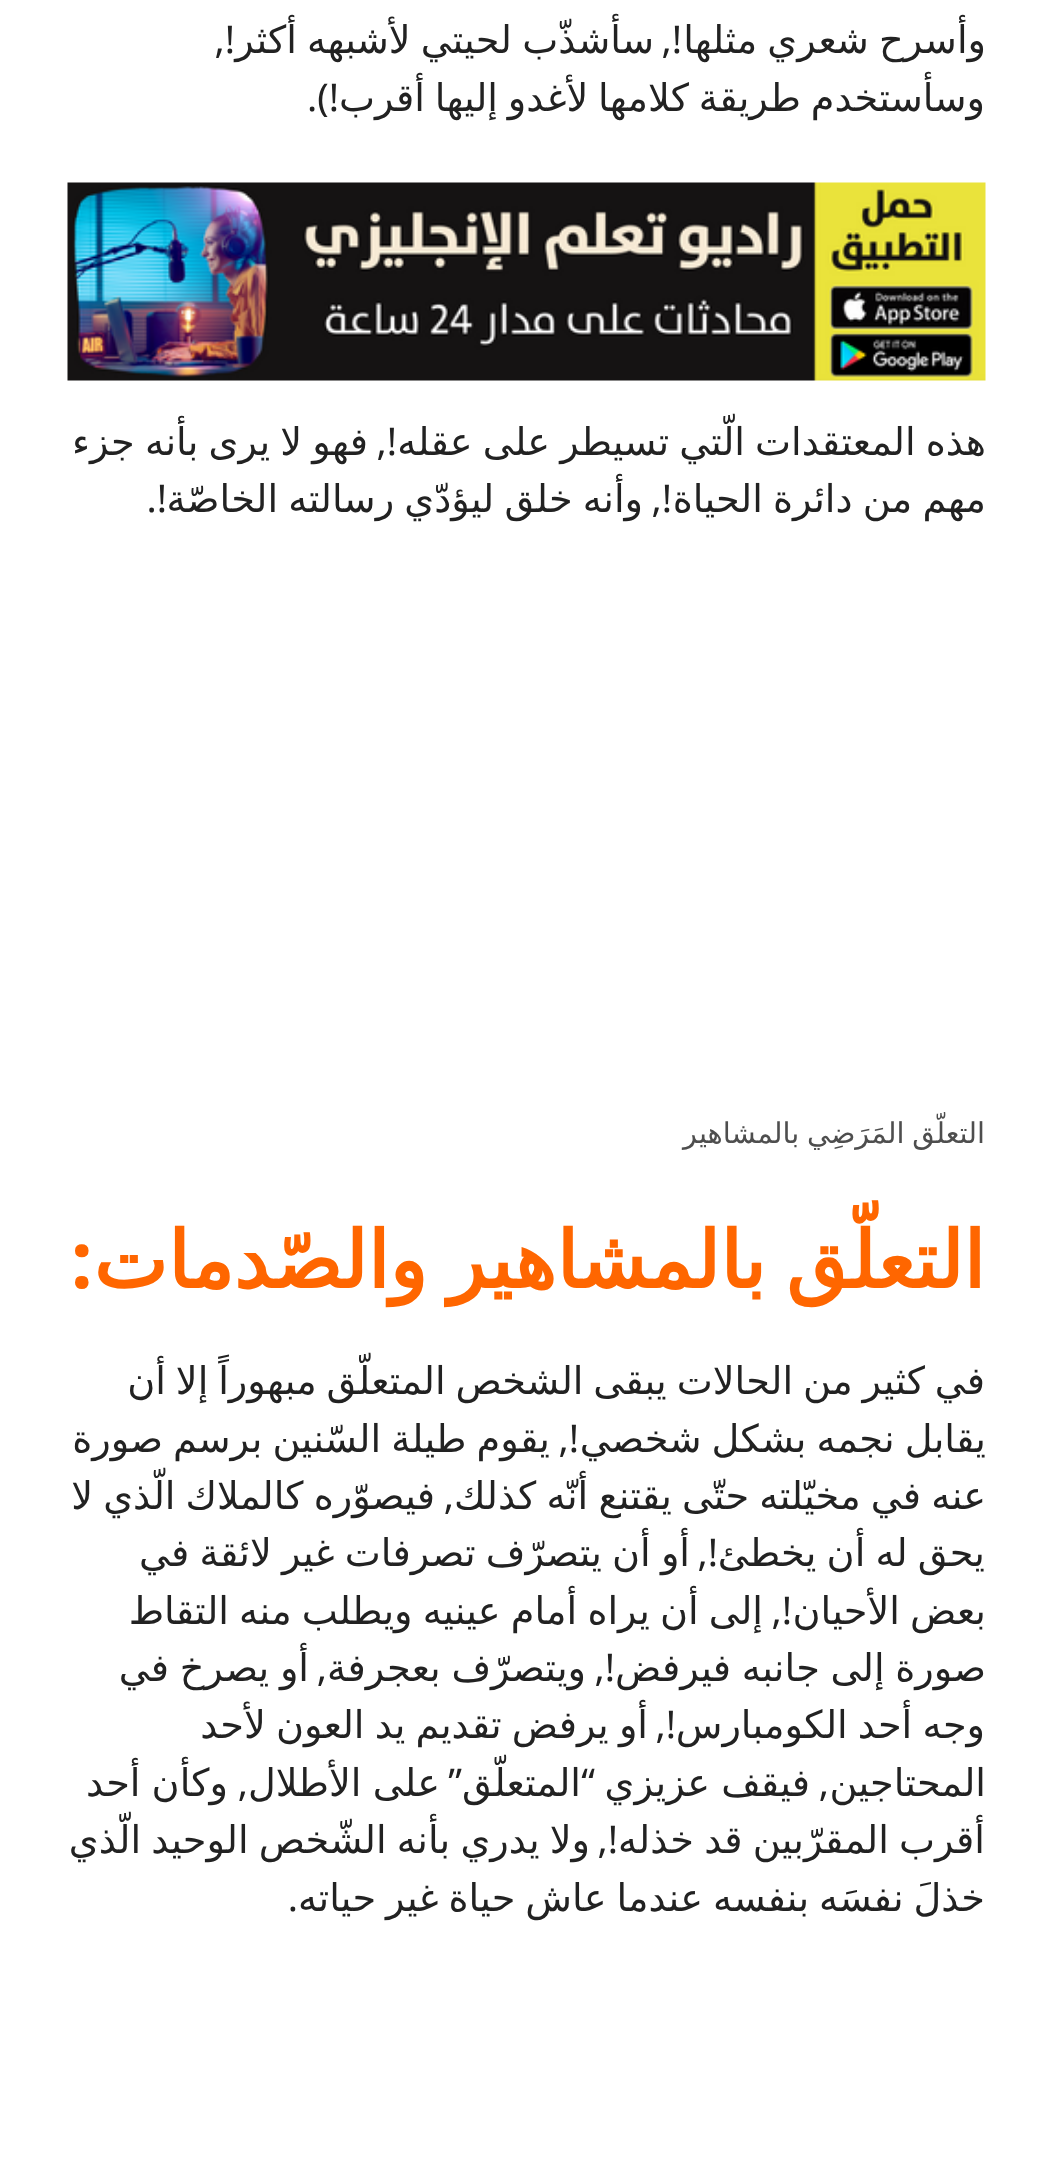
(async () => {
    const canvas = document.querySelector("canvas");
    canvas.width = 1051;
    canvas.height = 2172;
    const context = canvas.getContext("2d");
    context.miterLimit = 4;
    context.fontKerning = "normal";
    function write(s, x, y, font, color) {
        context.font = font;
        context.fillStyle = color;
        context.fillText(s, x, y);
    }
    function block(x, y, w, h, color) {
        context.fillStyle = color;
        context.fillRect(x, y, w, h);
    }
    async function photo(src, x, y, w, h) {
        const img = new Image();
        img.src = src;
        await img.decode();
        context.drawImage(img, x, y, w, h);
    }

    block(0, 0, 1051, 2172, "rgb(255, 255, 255)");
    context.wordSpacing = "-2px";
    context.direction = "rtl";
    write("وأسرح شعري مثلها", 986, 53, "38.25px DejaVu Sans", "rgb(34, 34, 34)");
    context.wordSpacing = "0px";
    write("!,", 682, 53, "38.25px Noto Sans", "rgb(34, 34, 34)");
    context.wordSpacing = "-2px";
    write("سأشذّب لحيتي لأشبهه أكثر", 654, 53, "38.25px DejaVu Sans", "rgb(34, 34, 34)");
    context.wordSpacing = "0px";
    write("!,", 235, 53, "38.25px Noto Sans", "rgb(34, 34, 34)");
    context.wordSpacing = "-2.25px";
    write("وسأستخدم طريقة كلامها لأغدو إليها أقرب", 985, 111, "38.25px DejaVu Sans", "rgb(34, 34, 34)");
    context.wordSpacing = "0px";
    write("!).", 339, 111, "38.25px Noto Sans", "rgb(34, 34, 34)");
    await photo("media/1.png", 67, 182, 919, 199);
    context.wordSpacing = "-2px";
    write("هذه المعتقدات الّتي تسيطر على عقله", 986, 455, "38.25px DejaVu Sans", "rgb(34, 34, 34)");
    context.wordSpacing = "0px";
    write("!,", 397, 455, "38.25px Noto Sans", "rgb(34, 34, 34)");
    context.wordSpacing = "-2px";
    write("فهو لا يرى بأنه جزء", 368, 455, "38.25px DejaVu Sans", "rgb(34, 34, 34)");
    write("مهم من دائرة الحياة", 986, 512, "38.25px DejaVu Sans", "rgb(34, 34, 34)");
    context.wordSpacing = "0px";
    write("!,", 672, 512, "38.25px Noto Sans", "rgb(34, 34, 34)");
    context.wordSpacing = "-2px";
    write("وأنه خلق ليؤدّي رسالته الخاصّة", 643, 512, "38.25px DejaVu Sans", "rgb(34, 34, 34)");
    context.wordSpacing = "0px";
    write("!.", 167, 512, "38.25px Noto Sans", "rgb(34, 34, 34)");
    context.wordSpacing = "-1.5px";
    write("التعلّق المَرَضِي بالمشاهير", 985, 1143, "28.75px DejaVu Sans", "rgb(78, 78, 78)");
    context.wordSpacing = "-5px";
    write("التعلّق بالمشاهير والصّدمات", 985, 1288, "bold 78.75px DejaVu Sans", "rgb(255, 102, 0)");
    context.wordSpacing = "0px";
    write(":", 93, 1288, "bold 78.75px Noto Sans", "rgb(255, 102, 0)");
    context.wordSpacing = "-2.25px";
    write("في كثير من الحالات يبقى الشخص المتعلّق مبهوراً إلا أن", 985, 1394, "38.25px DejaVu Sans", "rgb(34, 34, 34)");
    context.wordSpacing = "-2px";
    write("يقابل نجمه بشكل شخصي", 986, 1452, "38.25px DejaVu Sans", "rgb(34, 34, 34)");
    context.wordSpacing = "0px";
    write("!,", 579, 1452, "38.25px Noto Sans", "rgb(34, 34, 34)");
    context.wordSpacing = "-2px";
    write("يقوم طيلة السّنين برسم صورة", 550, 1452, "38.25px DejaVu Sans", "rgb(34, 34, 34)");
    write("عنه في مخيّلته حتّى يقتنع أنّه كذلك", 986, 1509, "38.25px DejaVu Sans", "rgb(34, 34, 34)");
    context.wordSpacing = "0px";
    write(",", 454, 1509, "38.25px Noto Sans", "rgb(34, 34, 34)");
    context.wordSpacing = "-2px";
    write("فيصوّره كالملاك الّذي لا", 435, 1509, "38.25px DejaVu Sans", "rgb(34, 34, 34)");
    write("يحق له أن يخطئ", 985, 1566, "38.25px DejaVu Sans", "rgb(34, 34, 34)");
    context.wordSpacing = "0px";
    write("!,", 718, 1566, "38.25px Noto Sans", "rgb(34, 34, 34)");
    context.wordSpacing = "-2px";
    write("أو أن يتصرّف تصرفات غير لائقة في", 690, 1566, "38.25px DejaVu Sans", "rgb(34, 34, 34)");
    write("بعض الأحيان", 986, 1624, "38.25px DejaVu Sans", "rgb(34, 34, 34)");
    context.wordSpacing = "0px";
    write("!,", 792, 1624, "38.25px Noto Sans", "rgb(34, 34, 34)");
    context.wordSpacing = "-2px";
    write("إلى أن يراه أمام عينيه ويطلب منه التقاط", 763, 1624, "38.25px DejaVu Sans", "rgb(34, 34, 34)");
    context.wordSpacing = "-1.5px";
    write("صورة إلى جانبه فيرفض", 986, 1681, "38.25px DejaVu Sans", "rgb(34, 34, 34)");
    context.wordSpacing = "0px";
    write("!,", 615, 1681, "38.25px Noto Sans", "rgb(34, 34, 34)");
    context.wordSpacing = "-1.5px";
    write("ويتصرّف بعجرفة", 586, 1681, "38.25px DejaVu Sans", "rgb(34, 34, 34)");
    context.wordSpacing = "0px";
    write(",", 327, 1681, "38.25px Noto Sans", "rgb(34, 34, 34)");
    context.wordSpacing = "-1.5px";
    write("أو يصرخ في", 309, 1681, "38.25px DejaVu Sans", "rgb(34, 34, 34)");
    context.wordSpacing = "-2px";
    write("وجه أحد الكومبارس", 985, 1738, "38.25px DejaVu Sans", "rgb(34, 34, 34)");
    context.wordSpacing = "0px";
    write("!,", 676, 1738, "38.25px Noto Sans", "rgb(34, 34, 34)");
    context.wordSpacing = "-2px";
    write("أو يرفض تقديم يد العون لأحد", 648, 1738, "38.25px DejaVu Sans", "rgb(34, 34, 34)");
    context.wordSpacing = "0px";
    write("المحتاجين", 986, 1796, "38.25px DejaVu Sans", "rgb(34, 34, 34)");
    write(",", 829, 1796, "38.25px Noto Sans", "rgb(34, 34, 34)");
    context.wordSpacing = "-1px";
    write("فيقف عزيزي", 810, 1796, "38.25px DejaVu Sans", "rgb(34, 34, 34)");
    context.wordSpacing = "0px";
    write("“", 595, 1796, "38.25px Noto Sans", "rgb(34, 34, 34)");
    write("المتعلّق", 581, 1796, "38.25px DejaVu Sans", "rgb(34, 34, 34)");
    write("”", 462, 1796, "38.25px Noto Sans", "rgb(34, 34, 34)");
    context.wordSpacing = "-1px";
    write("على الأطلال", 440, 1796, "38.25px DejaVu Sans", "rgb(34, 34, 34)");
    context.wordSpacing = "0px";
    write(",", 248, 1796, "38.25px Noto Sans", "rgb(34, 34, 34)");
    context.wordSpacing = "-1px";
    write("وكأن أحد", 228, 1796, "38.25px DejaVu Sans", "rgb(34, 34, 34)");
    context.wordSpacing = "-2px";
    write("أقرب المقرّبين قد خذله", 985, 1853, "38.25px DejaVu Sans", "rgb(34, 34, 34)");
    context.wordSpacing = "0px";
    write("!,", 618, 1853, "38.25px Noto Sans", "rgb(34, 34, 34)");
    context.wordSpacing = "-2px";
    write("ولا يدري بأنه الشّخص الوحيد الّذي", 590, 1853, "38.25px DejaVu Sans", "rgb(34, 34, 34)");
    context.wordSpacing = "-2.25px";
    write("خذلَ نفسَه بنفسه عندما عاش حياة غير حياته", 985, 1911, "38.25px DejaVu Sans", "rgb(34, 34, 34)");
    context.wordSpacing = "0px";
    write(".", 298, 1911, "38.25px Noto Sans", "rgb(34, 34, 34)");
})();
